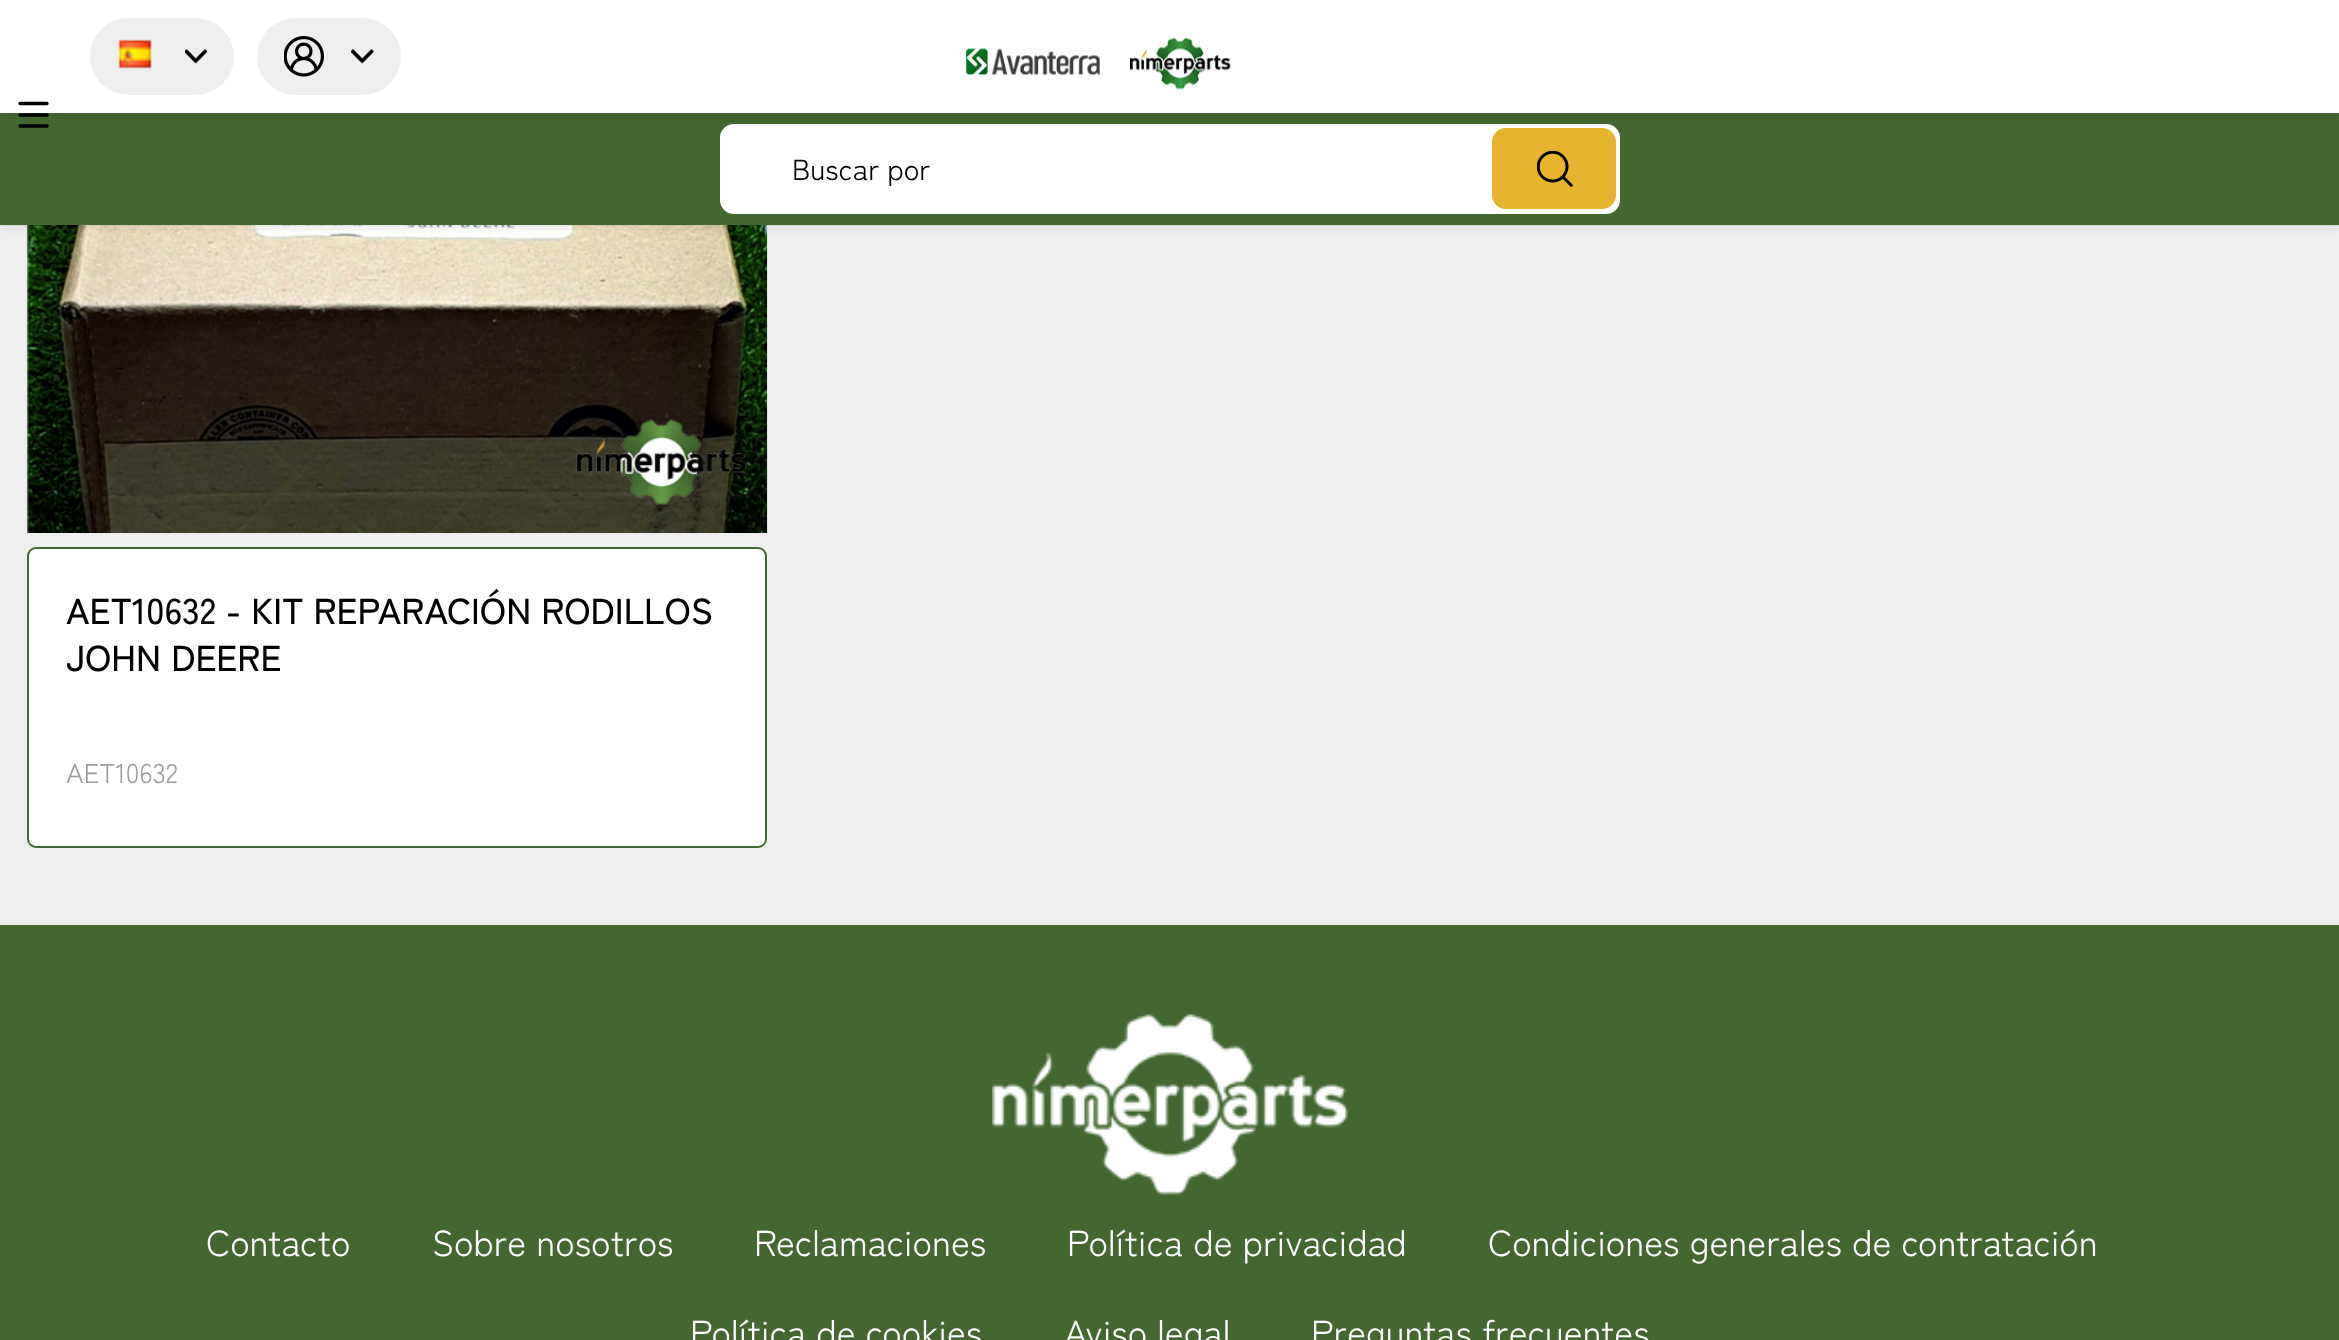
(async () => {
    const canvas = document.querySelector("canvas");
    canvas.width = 2339;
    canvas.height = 1340;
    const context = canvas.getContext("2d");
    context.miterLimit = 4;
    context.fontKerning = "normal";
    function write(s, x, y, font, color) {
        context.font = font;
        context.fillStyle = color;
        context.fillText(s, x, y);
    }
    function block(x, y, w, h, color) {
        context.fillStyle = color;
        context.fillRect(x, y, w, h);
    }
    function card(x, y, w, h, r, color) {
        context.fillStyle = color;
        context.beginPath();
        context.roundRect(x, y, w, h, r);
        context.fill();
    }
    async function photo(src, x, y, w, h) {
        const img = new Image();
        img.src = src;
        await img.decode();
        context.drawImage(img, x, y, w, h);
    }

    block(0, 0, 2339, 1340, "rgb(238, 238, 238)");
    await photo("media/7.png", 27, 225, 741, 308);
    context.fillStyle = "rgba(0, 0, 0, 0.15)";
    context.filter = "blur(5.5px)";
    context.beginPath();
    context.rect(0, 113, 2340, 112);
    context.fill();
    context.filter = "none";
    block(0, 113, 2339, 112, "rgb(66, 103, 47)");
    context.fillStyle = "rgb(255, 255, 255)";
    context.beginPath();
    context.roundRect(722.5, 126.5, 895, 85, 11.5);
    context.fill();
    context.strokeStyle = "rgb(255, 255, 255)";
    context.lineWidth = 5;
    context.stroke();
    card(1492, 128, 124, 81, 14, "rgb(231, 181, 45)");
    context.fillStyle = "rgba(0, 0, 0, 0.05)";
    context.filter = "blur(5.5px)";
    context.beginPath();
    context.rect(0, 0, 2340, 113);
    context.fill();
    context.filter = "none";
    block(0, 0, 2339, 113, "rgb(255, 255, 255)");
    card(90, 18, 144, 77, 38.5, "rgb(238, 238, 238)");
    await photo("media/1.png", 118, 39, 34, 30);
    await photo("media/2.png", 185, 49, 22, 15);
    card(257, 18, 144, 77, 38.5, "rgb(238, 238, 238)");
    await photo("media/3.png", 284, 36, 40, 41);
    await photo("media/4.png", 351, 49, 23, 15);
    await photo("media/5.png", 966, 38, 265, 52);
    context.beginPath();
    context.moveTo(20, 103.5);
    context.lineTo(47, 103.5);
    context.moveTo(20, 115);
    context.lineTo(47, 115);
    context.moveTo(47, 126);
    context.lineTo(20, 126);
    context.strokeStyle = "rgb(0, 0, 0)";
    context.lineWidth = 3.4;
    context.lineCap = "round";
    context.stroke();
    write("Buscar por", 792, 180, "29px Zen Kaku Gothic Antique", "rgb(0, 0, 0)");
    await photo("media/6.png", 1537, 151, 36, 36);
    context.fillStyle = "rgb(255, 255, 255)";
    context.beginPath();
    context.roundRect(28, 548, 738, 299, 8);
    context.fill();
    context.strokeStyle = "rgb(66, 103, 47)";
    context.lineWidth = 2;
    context.stroke();
    write("AET10632 - KIT REPARACIÓN RODILLOS", 66, 624, "500 36px Zen Kaku Gothic Antique", "rgb(0, 0, 0)");
    write("JOHN DEERE", 66, 671, "500 36px Zen Kaku Gothic Antique", "rgb(0, 0, 0)");
    write("AET10632", 66, 783, "27px Zen Kaku Gothic Antique", "rgb(156, 156, 156)");
    block(0, 925, 2339, 415, "rgb(66, 103, 47)");
    await photo("media/8.png", 992, 1014, 356, 181);
    write("Contacto", 206, 1256, "36px Zen Kaku Gothic Antique", "rgb(255, 255, 255)");
    write("Sobre nosotros", 432, 1256, "36px Zen Kaku Gothic Antique", "rgb(255, 255, 255)");
    write("Reclamaciones", 754, 1256, "36px Zen Kaku Gothic Antique", "rgb(255, 255, 255)");
    write("Política de privacidad", 1067, 1256, "36px Zen Kaku Gothic Antique", "rgb(255, 255, 255)");
    write("Condiciones generales de contratación", 1488, 1256, "36px Zen Kaku Gothic Antique", "rgb(255, 255, 255)");
    write("Política de cookies", 690, 1346, "36px Zen Kaku Gothic Antique", "rgb(255, 255, 255)");
    write("Aviso legal", 1064, 1346, "36px Zen Kaku Gothic Antique", "rgb(255, 255, 255)");
    write("Preguntas frecuentes", 1311, 1346, "36px Zen Kaku Gothic Antique", "rgb(255, 255, 255)");
})();
